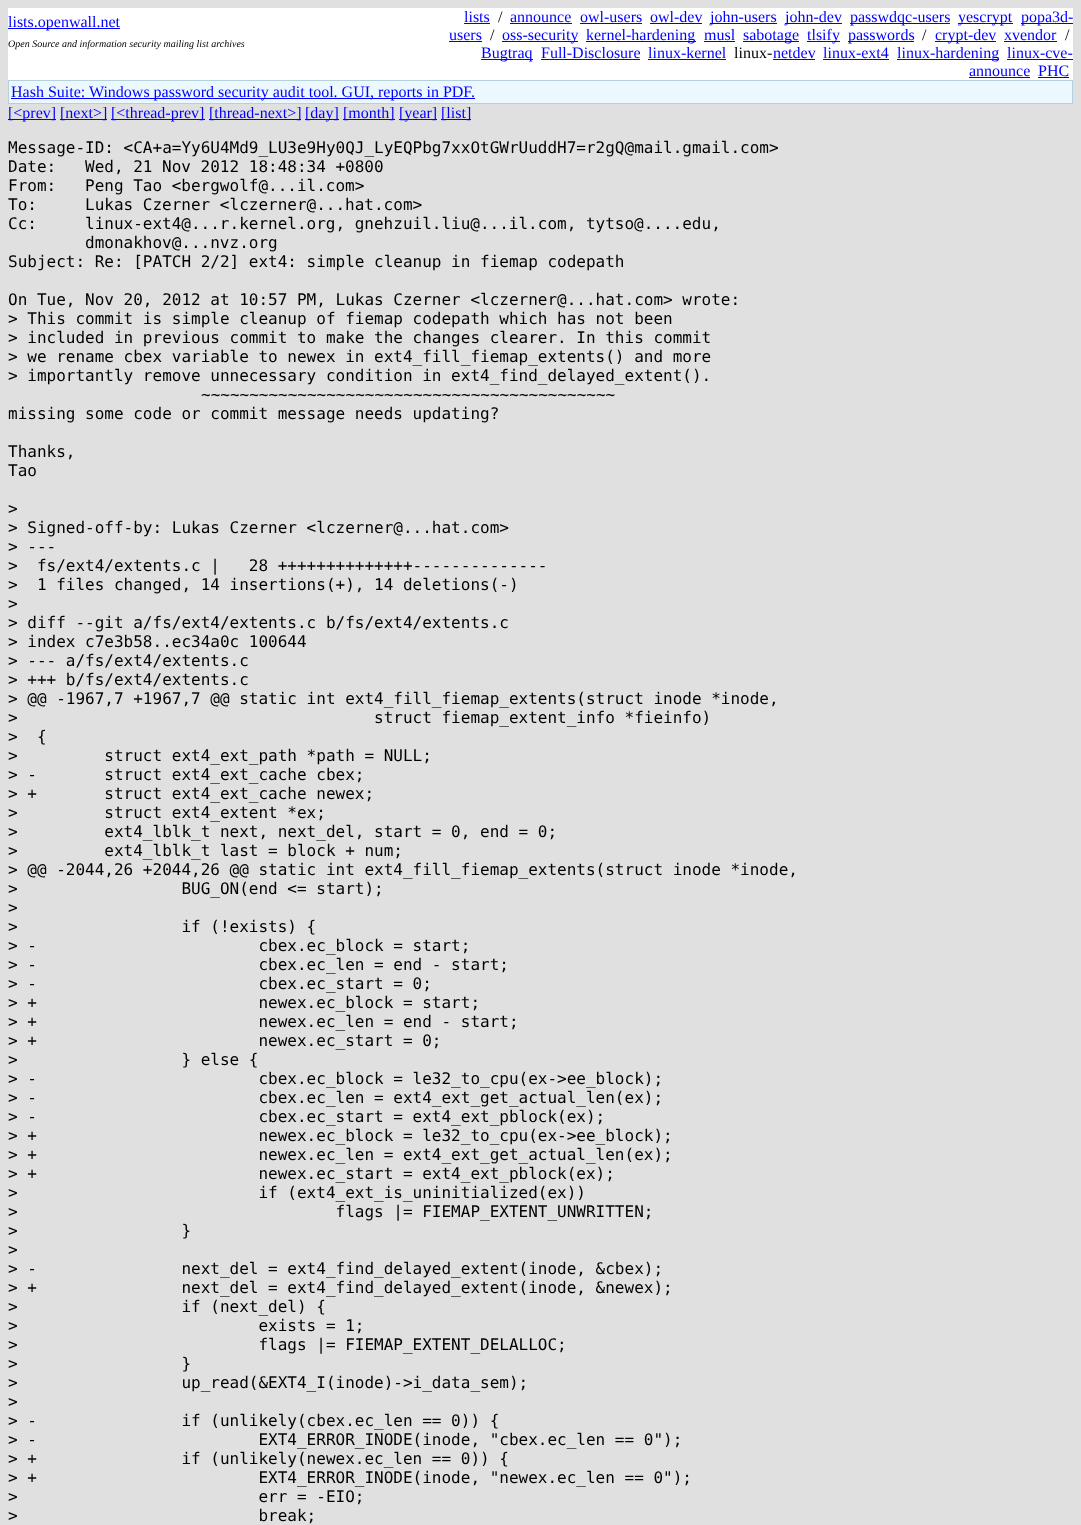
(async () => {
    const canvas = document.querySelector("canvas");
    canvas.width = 1081;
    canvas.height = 1525;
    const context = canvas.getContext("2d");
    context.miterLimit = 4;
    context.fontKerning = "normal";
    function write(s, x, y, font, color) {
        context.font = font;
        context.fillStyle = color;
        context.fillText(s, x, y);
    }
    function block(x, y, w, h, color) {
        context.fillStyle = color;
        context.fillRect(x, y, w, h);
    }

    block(0, 0, 1081, 1525, "rgb(224, 224, 224)");
    block(8, 8, 1065, 72, "rgb(255, 255, 255)");
    block(8, 28, 112, 1, "rgb(0, 0, 255)");
    write("lists.openwall.net", 8, 27, "16px Liberation Serif", "rgb(0, 0, 255)");
    write("lists", 464, 22, "16px Liberation Serif", "rgb(0, 0, 255)");
    block(464, 23, 26, 1, "rgb(0, 0, 255)");
    write("/", 498, 22, "16px Liberation Serif", "rgb(0, 0, 0)");
    write("announce", 510, 22, "16px Liberation Serif", "rgb(0, 0, 255)");
    block(510, 23, 62, 1, "rgb(0, 0, 255)");
    write("owl-users", 580, 22, "16px Liberation Serif", "rgb(0, 0, 255)");
    block(580, 23, 62, 1, "rgb(0, 0, 255)");
    write("owl-dev", 650, 22, "16px Liberation Serif", "rgb(0, 0, 255)");
    block(650, 23, 52, 1, "rgb(0, 0, 255)");
    block(710, 23, 67, 1, "rgb(0, 0, 255)");
    write("john-users", 710, 22, "16px Liberation Serif", "rgb(0, 0, 255)");
    block(785, 23, 57, 1, "rgb(0, 0, 255)");
    write("john-dev", 785, 22, "16px Liberation Serif", "rgb(0, 0, 255)");
    block(850, 23, 100, 1, "rgb(0, 0, 255)");
    write("passwdqc-users", 850, 22, "16px Liberation Serif", "rgb(0, 0, 255)");
    block(958, 23, 55, 1, "rgb(0, 0, 255)");
    write("yescrypt", 958, 22, "16px Liberation Serif", "rgb(0, 0, 255)");
    block(1021, 23, 52, 1, "rgb(0, 0, 255)");
    write("popa3d-", 1021, 22, "16px Liberation Serif", "rgb(0, 0, 255)");
    write("users", 449, 40, "16px Liberation Serif", "rgb(0, 0, 255)");
    block(449, 41, 33, 1, "rgb(0, 0, 255)");
    write("/", 490, 40, "16px Liberation Serif", "rgb(0, 0, 0)");
    block(502, 41, 76, 1, "rgb(0, 0, 255)");
    write("oss-security", 502, 40, "16px Liberation Serif", "rgb(0, 0, 255)");
    block(586, 41, 110, 1, "rgb(0, 0, 255)");
    write("kernel-hardening", 586, 40, "16px Liberation Serif", "rgb(0, 0, 255)");
    write("musl", 704, 40, "16px Liberation Serif", "rgb(0, 0, 255)");
    block(704, 41, 31, 1, "rgb(0, 0, 255)");
    block(743, 41, 56, 1, "rgb(0, 0, 255)");
    write("sabotage", 743, 40, "16px Liberation Serif", "rgb(0, 0, 255)");
    block(807, 41, 33, 1, "rgb(0, 0, 255)");
    write("tlsify", 807, 40, "16px Liberation Serif", "rgb(0, 0, 255)");
    block(848, 41, 66, 1, "rgb(0, 0, 255)");
    write("passwords", 848, 40, "16px Liberation Serif", "rgb(0, 0, 255)");
    write("/", 922, 40, "16px Liberation Serif", "rgb(0, 0, 0)");
    block(935, 41, 61, 1, "rgb(0, 0, 255)");
    write("crypt-dev", 935, 40, "16px Liberation Serif", "rgb(0, 0, 255)");
    write("xvendor", 1004, 40, "16px Liberation Serif", "rgb(0, 0, 255)");
    block(1004, 41, 53, 1, "rgb(0, 0, 255)");
    write("/", 1065, 40, "16px Liberation Serif", "rgb(0, 0, 0)");
    block(481, 59, 52, 1, "rgb(0, 0, 255)");
    write("Bugtraq", 481, 58, "16px Liberation Serif", "rgb(0, 0, 255)");
    write("Full-Disclosure", 541, 58, "16px Liberation Serif", "rgb(0, 0, 255)");
    block(541, 59, 99, 1, "rgb(0, 0, 255)");
    write("linux-kernel", 648, 58, "16px Liberation Serif", "rgb(0, 0, 255)");
    block(648, 59, 78, 1, "rgb(0, 0, 255)");
    write("linux-", 734, 58, "16px Liberation Serif", "rgb(0, 0, 0)");
    write("netdev", 773, 58, "16px Liberation Serif", "rgb(0, 0, 255)");
    block(773, 59, 42, 1, "rgb(0, 0, 255)");
    write("linux-ext4", 823, 58, "16px Liberation Serif", "rgb(0, 0, 255)");
    block(823, 59, 66, 1, "rgb(0, 0, 255)");
    block(897, 59, 102, 1, "rgb(0, 0, 255)");
    write("linux-hardening", 897, 58, "16px Liberation Serif", "rgb(0, 0, 255)");
    write("linux-cve-", 1007, 58, "16px Liberation Serif", "rgb(0, 0, 255)");
    block(1007, 59, 66, 1, "rgb(0, 0, 255)");
    write("announce", 969, 76, "16px Liberation Serif", "rgb(0, 0, 255)");
    block(969, 77, 61, 1, "rgb(0, 0, 255)");
    write("PHC", 1038, 76, "16px Liberation Serif", "rgb(0, 0, 255)");
    block(1038, 77, 31, 1, "rgb(0, 0, 255)");
    write("Open Source and information security mailing list archives", 8, 47, "italic 10px Liberation Serif", "rgb(0, 0, 0)");
    block(8, 80, 1065, 24, "rgb(180, 208, 220)");
    block(9, 81, 1063, 22, "rgb(236, 248, 255)");
    block(11, 98, 464, 1, "rgb(0, 0, 255)");
    write("Hash Suite: Windows password security audit tool. GUI, reports in PDF.", 11, 97, "16px Liberation Serif", "rgb(0, 0, 255)");
    block(8, 119, 48, 1, "rgb(0, 0, 255)");
    write("[<prev]", 8, 118, "16px Liberation Serif", "rgb(0, 0, 255)");
    block(60, 119, 47, 1, "rgb(0, 0, 255)");
    write("[next>]", 60, 118, "16px Liberation Serif", "rgb(0, 0, 255)");
    block(111, 119, 94, 1, "rgb(0, 0, 255)");
    write("[<thread-prev]", 111, 118, "16px Liberation Serif", "rgb(0, 0, 255)");
    block(209, 119, 92, 1, "rgb(0, 0, 255)");
    write("[thread-next>]", 209, 118, "16px Liberation Serif", "rgb(0, 0, 255)");
    block(305, 119, 34, 1, "rgb(0, 0, 255)");
    write("[day]", 305, 118, "16px Liberation Serif", "rgb(0, 0, 255)");
    block(343, 119, 52, 1, "rgb(0, 0, 255)");
    write("[month]", 343, 118, "16px Liberation Serif", "rgb(0, 0, 255)");
    block(399, 119, 38, 1, "rgb(0, 0, 255)");
    write("[year]", 399, 118, "16px Liberation Serif", "rgb(0, 0, 255)");
    block(441, 119, 30, 1, "rgb(0, 0, 255)");
    write("[list]", 441, 118, "16px Liberation Serif", "rgb(0, 0, 255)");
    write("Message-ID: <CA+a=Yy6U4Md9_LU3e9Hy0QJ_LyEQPbg7xxOtGWrUuddH7=r2gQ@mail.gmail.com>", 8, 153, "16px DejaVu Sans Mono", "rgb(0, 0, 0)");
    write("Date:", 8, 172, "16px DejaVu Sans Mono", "rgb(0, 0, 0)");
    write("Wed, 21 Nov 2012 18:48:34 +0800", 85, 172, "16px DejaVu Sans Mono", "rgb(0, 0, 0)");
    write("From:", 8, 191, "16px DejaVu Sans Mono", "rgb(0, 0, 0)");
    write("Peng Tao <bergwolf@...il.com>", 85, 191, "16px DejaVu Sans Mono", "rgb(0, 0, 0)");
    write("To:", 8, 210, "16px DejaVu Sans Mono", "rgb(0, 0, 0)");
    write("Lukas Czerner <lczerner@...hat.com>", 85, 210, "16px DejaVu Sans Mono", "rgb(0, 0, 0)");
    write("Cc:", 8, 229, "16px DejaVu Sans Mono", "rgb(0, 0, 0)");
    write("linux-ext4@...r.kernel.org, gnehzuil.liu@...il.com, tytso@....edu,", 85, 229, "16px DejaVu Sans Mono", "rgb(0, 0, 0)");
    write("dmonakhov@...nvz.org", 85, 248, "16px DejaVu Sans Mono", "rgb(0, 0, 0)");
    write("Subject: Re: [PATCH 2/2] ext4: simple cleanup in fiemap codepath", 8, 267, "16px DejaVu Sans Mono", "rgb(0, 0, 0)");
    write("On Tue, Nov 20, 2012 at 10:57 PM, Lukas Czerner <lczerner@...hat.com> wrote:", 8, 305, "16px DejaVu Sans Mono", "rgb(0, 0, 0)");
    write("> This commit is simple cleanup of fiemap codepath which has not been", 8, 324, "16px DejaVu Sans Mono", "rgb(0, 0, 0)");
    write("> included in previous commit to make the changes clearer. In this commit", 8, 343, "16px DejaVu Sans Mono", "rgb(0, 0, 0)");
    write("> we rename cbex variable to newex in ext4_fill_fiemap_extents() and more", 8, 362, "16px DejaVu Sans Mono", "rgb(0, 0, 0)");
    write("> importantly remove unnecessary condition in ext4_find_delayed_extent().", 8, 381, "16px DejaVu Sans Mono", "rgb(0, 0, 0)");
    write("~~~~~~~~~~~~~~~~~~~~~~~~~~~~~~~~~~~~~~~~~~~", 201, 400, "16px DejaVu Sans Mono", "rgb(0, 0, 0)");
    write("missing some code or commit message needs updating?", 8, 419, "16px DejaVu Sans Mono", "rgb(0, 0, 0)");
    write("Thanks,", 8, 457, "16px DejaVu Sans Mono", "rgb(0, 0, 0)");
    write("Tao", 8, 476, "16px DejaVu Sans Mono", "rgb(0, 0, 0)");
    write(">", 8, 514, "16px DejaVu Sans Mono", "rgb(0, 0, 0)");
    write("> Signed-off-by: Lukas Czerner <lczerner@...hat.com>", 8, 533, "16px DejaVu Sans Mono", "rgb(0, 0, 0)");
    write("> ---", 8, 552, "16px DejaVu Sans Mono", "rgb(0, 0, 0)");
    write(">  fs/ext4/extents.c |   28 ++++++++++++++--------------", 8, 571, "16px DejaVu Sans Mono", "rgb(0, 0, 0)");
    write(">  1 files changed, 14 insertions(+), 14 deletions(-)", 8, 590, "16px DejaVu Sans Mono", "rgb(0, 0, 0)");
    write(">", 8, 609, "16px DejaVu Sans Mono", "rgb(0, 0, 0)");
    write("> diff --git a/fs/ext4/extents.c b/fs/ext4/extents.c", 8, 628, "16px DejaVu Sans Mono", "rgb(0, 0, 0)");
    write("> index c7e3b58..ec34a0c 100644", 8, 647, "16px DejaVu Sans Mono", "rgb(0, 0, 0)");
    write("> --- a/fs/ext4/extents.c", 8, 666, "16px DejaVu Sans Mono", "rgb(0, 0, 0)");
    write("> +++ b/fs/ext4/extents.c", 8, 685, "16px DejaVu Sans Mono", "rgb(0, 0, 0)");
    write("> @@ -1967,7 +1967,7 @@ static int ext4_fill_fiemap_extents(struct inode *inode,", 8, 704, "16px DejaVu Sans Mono", "rgb(0, 0, 0)");
    write(">                                     struct fiemap_extent_info *fieinfo)", 8, 723, "16px DejaVu Sans Mono", "rgb(0, 0, 0)");
    write(">  {", 8, 742, "16px DejaVu Sans Mono", "rgb(0, 0, 0)");
    write(">         struct ext4_ext_path *path = NULL;", 8, 761, "16px DejaVu Sans Mono", "rgb(0, 0, 0)");
    write("> -       struct ext4_ext_cache cbex;", 8, 780, "16px DejaVu Sans Mono", "rgb(0, 0, 0)");
    write("> +       struct ext4_ext_cache newex;", 8, 799, "16px DejaVu Sans Mono", "rgb(0, 0, 0)");
    write(">         struct ext4_extent *ex;", 8, 818, "16px DejaVu Sans Mono", "rgb(0, 0, 0)");
    write(">         ext4_lblk_t next, next_del, start = 0, end = 0;", 8, 837, "16px DejaVu Sans Mono", "rgb(0, 0, 0)");
    write(">         ext4_lblk_t last = block + num;", 8, 856, "16px DejaVu Sans Mono", "rgb(0, 0, 0)");
    write("> @@ -2044,26 +2044,26 @@ static int ext4_fill_fiemap_extents(struct inode *inode,", 8, 875, "16px DejaVu Sans Mono", "rgb(0, 0, 0)");
    write(">                 BUG_ON(end <= start);", 8, 894, "16px DejaVu Sans Mono", "rgb(0, 0, 0)");
    write(">", 8, 913, "16px DejaVu Sans Mono", "rgb(0, 0, 0)");
    write(">                 if (!exists) {", 8, 932, "16px DejaVu Sans Mono", "rgb(0, 0, 0)");
    write("> -                       cbex.ec_block = start;", 8, 951, "16px DejaVu Sans Mono", "rgb(0, 0, 0)");
    write("> -                       cbex.ec_len = end - start;", 8, 970, "16px DejaVu Sans Mono", "rgb(0, 0, 0)");
    write("> -                       cbex.ec_start = 0;", 8, 989, "16px DejaVu Sans Mono", "rgb(0, 0, 0)");
    write("> +                       newex.ec_block = start;", 8, 1008, "16px DejaVu Sans Mono", "rgb(0, 0, 0)");
    write("> +                       newex.ec_len = end - start;", 8, 1027, "16px DejaVu Sans Mono", "rgb(0, 0, 0)");
    write("> +                       newex.ec_start = 0;", 8, 1046, "16px DejaVu Sans Mono", "rgb(0, 0, 0)");
    write(">                 } else {", 8, 1065, "16px DejaVu Sans Mono", "rgb(0, 0, 0)");
    write("> -                       cbex.ec_block = le32_to_cpu(ex->ee_block);", 8, 1084, "16px DejaVu Sans Mono", "rgb(0, 0, 0)");
    write("> -                       cbex.ec_len = ext4_ext_get_actual_len(ex);", 8, 1103, "16px DejaVu Sans Mono", "rgb(0, 0, 0)");
    write("> -                       cbex.ec_start = ext4_ext_pblock(ex);", 8, 1122, "16px DejaVu Sans Mono", "rgb(0, 0, 0)");
    write("> +                       newex.ec_block = le32_to_cpu(ex->ee_block);", 8, 1141, "16px DejaVu Sans Mono", "rgb(0, 0, 0)");
    write("> +                       newex.ec_len = ext4_ext_get_actual_len(ex);", 8, 1160, "16px DejaVu Sans Mono", "rgb(0, 0, 0)");
    write("> +                       newex.ec_start = ext4_ext_pblock(ex);", 8, 1179, "16px DejaVu Sans Mono", "rgb(0, 0, 0)");
    write(">                         if (ext4_ext_is_uninitialized(ex))", 8, 1198, "16px DejaVu Sans Mono", "rgb(0, 0, 0)");
    write(">                                 flags |= FIEMAP_EXTENT_UNWRITTEN;", 8, 1217, "16px DejaVu Sans Mono", "rgb(0, 0, 0)");
    write(">                 }", 8, 1236, "16px DejaVu Sans Mono", "rgb(0, 0, 0)");
    write(">", 8, 1255, "16px DejaVu Sans Mono", "rgb(0, 0, 0)");
    write("> -               next_del = ext4_find_delayed_extent(inode, &cbex);", 8, 1274, "16px DejaVu Sans Mono", "rgb(0, 0, 0)");
    write("> +               next_del = ext4_find_delayed_extent(inode, &newex);", 8, 1293, "16px DejaVu Sans Mono", "rgb(0, 0, 0)");
    write(">                 if (next_del) {", 8, 1312, "16px DejaVu Sans Mono", "rgb(0, 0, 0)");
    write(">                         exists = 1;", 8, 1331, "16px DejaVu Sans Mono", "rgb(0, 0, 0)");
    write(">                         flags |= FIEMAP_EXTENT_DELALLOC;", 8, 1350, "16px DejaVu Sans Mono", "rgb(0, 0, 0)");
    write(">                 }", 8, 1369, "16px DejaVu Sans Mono", "rgb(0, 0, 0)");
    write(">                 up_read(&EXT4_I(inode)->i_data_sem);", 8, 1388, "16px DejaVu Sans Mono", "rgb(0, 0, 0)");
    write(">", 8, 1407, "16px DejaVu Sans Mono", "rgb(0, 0, 0)");
    write("> -               if (unlikely(cbex.ec_len == 0)) {", 8, 1426, "16px DejaVu Sans Mono", "rgb(0, 0, 0)");
    write("> -                       EXT4_ERROR_INODE(inode, \"cbex.ec_len == 0\");", 8, 1445, "16px DejaVu Sans Mono", "rgb(0, 0, 0)");
    write("> +               if (unlikely(newex.ec_len == 0)) {", 8, 1464, "16px DejaVu Sans Mono", "rgb(0, 0, 0)");
    write("> +                       EXT4_ERROR_INODE(inode, \"newex.ec_len == 0\");", 8, 1483, "16px DejaVu Sans Mono", "rgb(0, 0, 0)");
    write(">                         err = -EIO;", 8, 1502, "16px DejaVu Sans Mono", "rgb(0, 0, 0)");
    write(">                         break;", 8, 1521, "16px DejaVu Sans Mono", "rgb(0, 0, 0)");
})();
